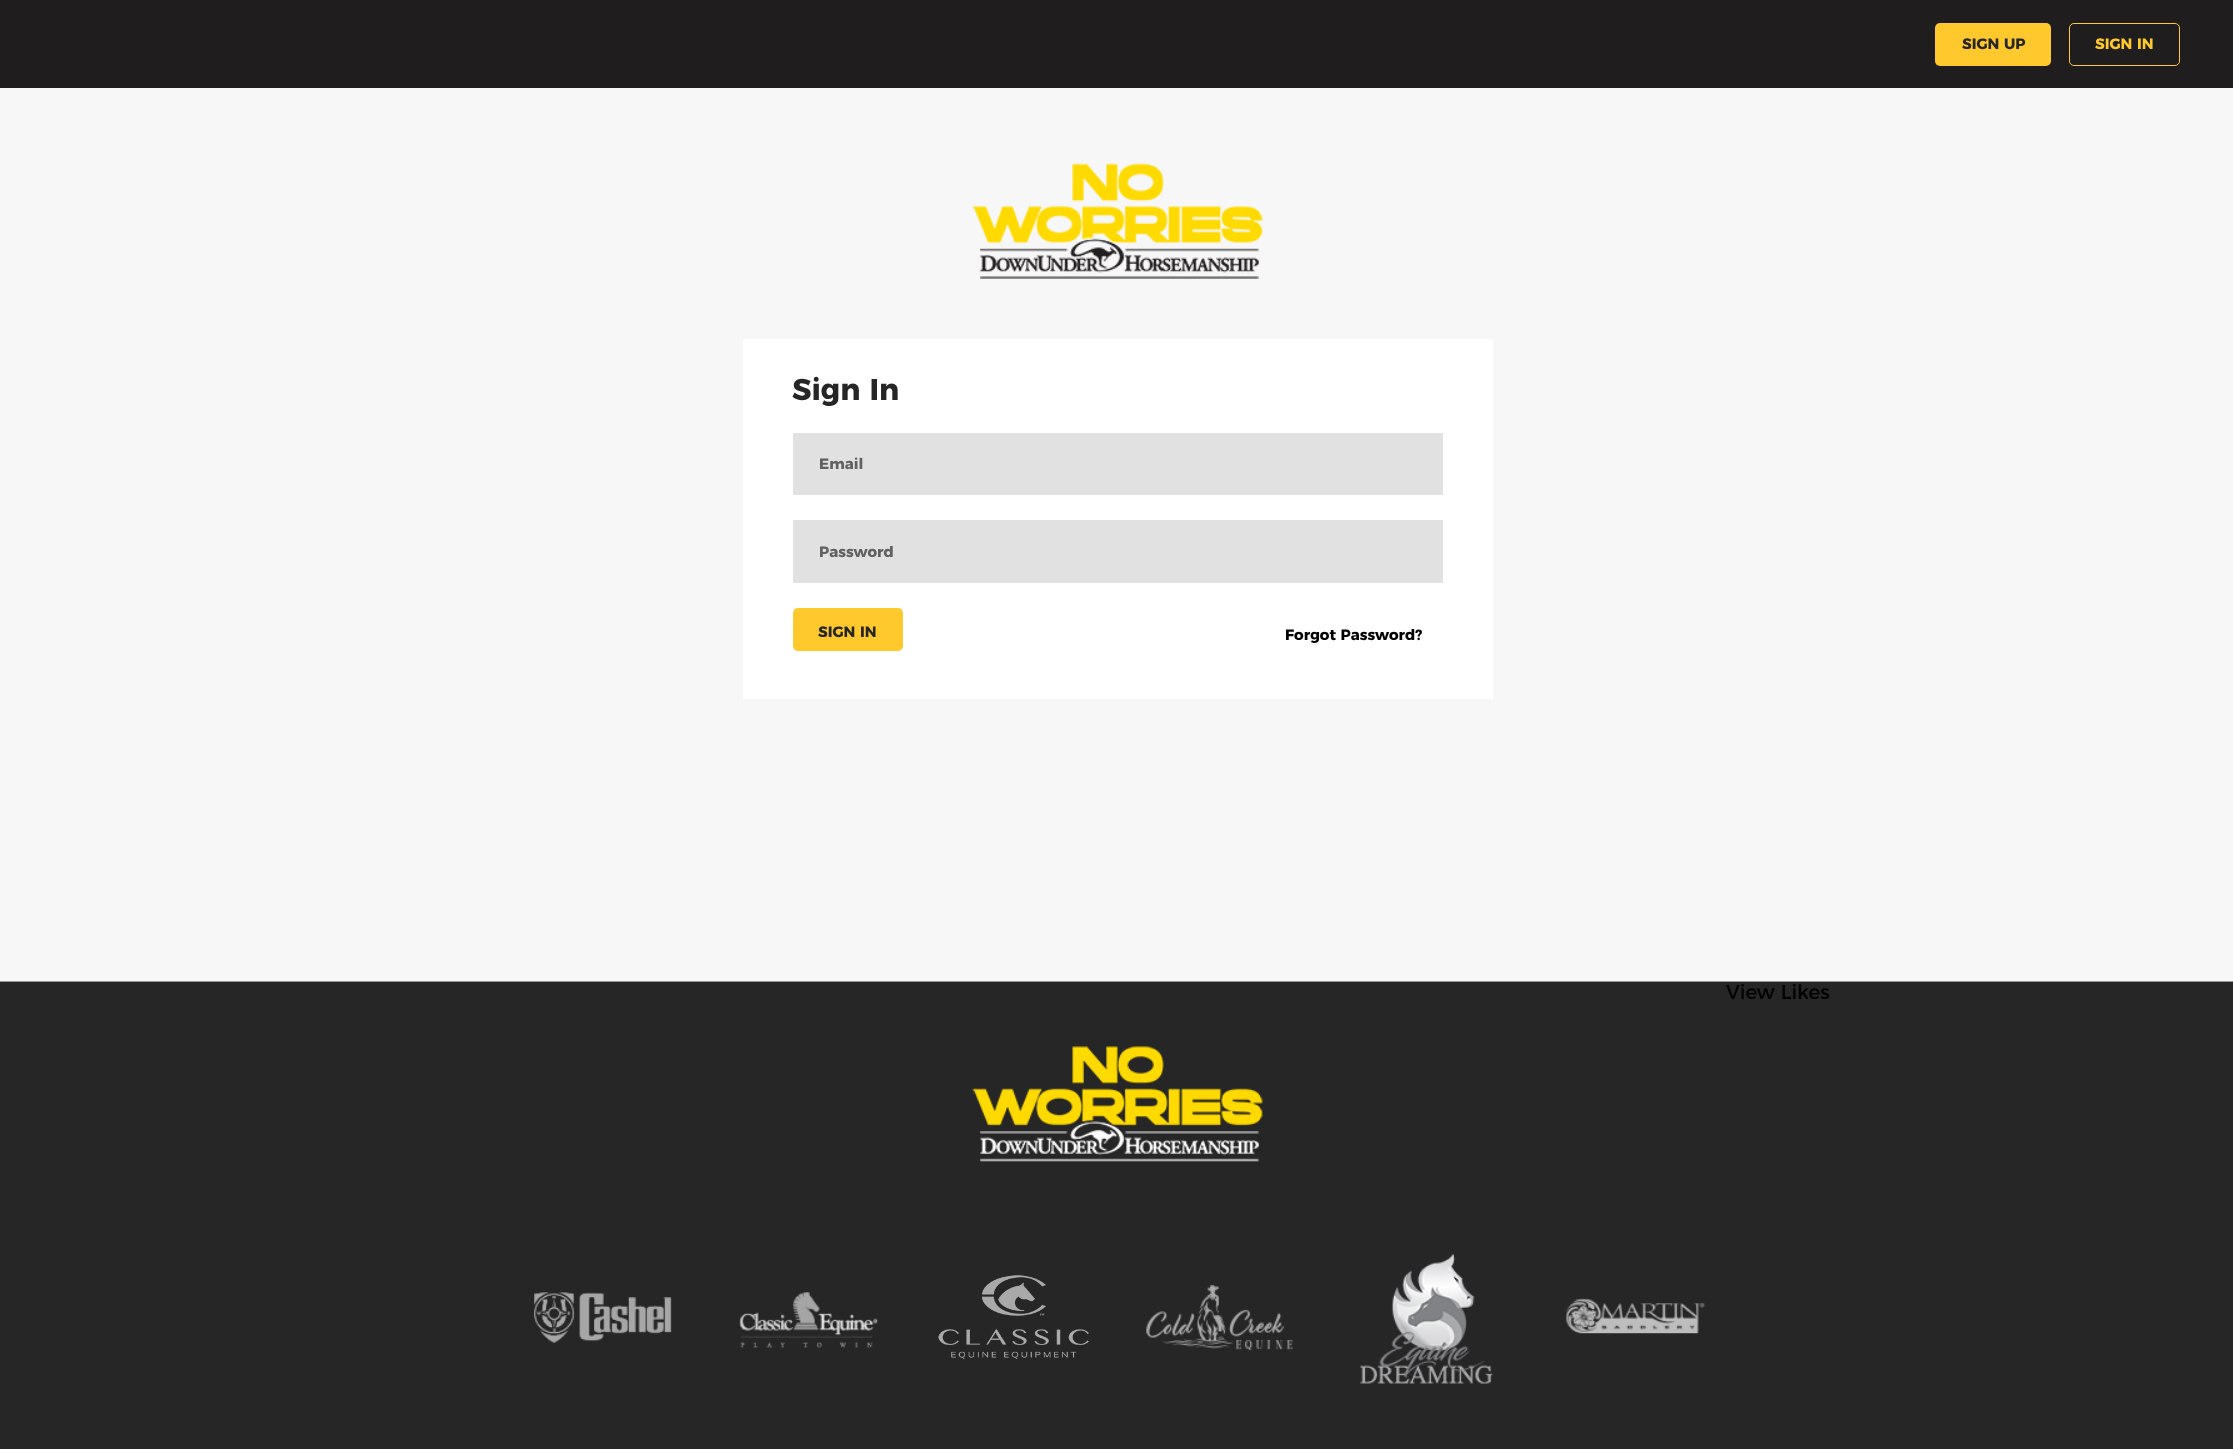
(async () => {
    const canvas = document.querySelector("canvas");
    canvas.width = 2233;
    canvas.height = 1449;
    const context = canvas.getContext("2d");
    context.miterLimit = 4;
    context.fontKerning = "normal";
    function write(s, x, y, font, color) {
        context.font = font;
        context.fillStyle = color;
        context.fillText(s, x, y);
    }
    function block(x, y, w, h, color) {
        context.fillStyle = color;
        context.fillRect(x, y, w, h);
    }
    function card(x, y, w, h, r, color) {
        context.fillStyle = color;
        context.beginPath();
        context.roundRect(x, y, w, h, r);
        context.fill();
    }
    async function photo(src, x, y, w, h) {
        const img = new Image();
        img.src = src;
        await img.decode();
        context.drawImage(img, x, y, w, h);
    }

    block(0, 0, 2233, 1449, "rgb(247, 247, 247)");
    block(0, 0, 2233, 88, "rgb(31, 29, 29)");
    card(1935, 23, 116, 43, 5, "rgb(255, 200, 45)");
    write("SIGN UP", 1962, 49, "bold 15px Montserrat", "rgb(38, 38, 38)");
    context.beginPath();
    context.roundRect(2069.5, 23.5, 110, 42, 4.5);
    context.strokeStyle = "rgb(255, 200, 45)";
    context.stroke();
    write("SIGN IN", 2095, 49, "bold 15px Montserrat", "rgb(255, 200, 45)");
    await photo("media/1.png", 972, 163, 291, 116);
    block(743, 339, 750, 360, "rgb(255, 255, 255)");
    write("Sign In", 792, 400, "bold 30px Montserrat", "rgb(38, 38, 38)");
    block(793, 433, 650, 62, "rgb(225, 225, 225)");
    write("Email", 819, 469, "bold 15px Montserrat", "rgb(97, 97, 97)");
    block(793, 520, 650, 63, "rgb(225, 225, 225)");
    write("Password", 819, 557, "bold 15px Montserrat", "rgb(97, 97, 97)");
    card(793, 608, 110, 43, 5, "rgb(255, 200, 45)");
    write("SIGN IN", 818, 637, "bold 15px Montserrat", "rgb(38, 38, 38)");
    write("Forgot Password?", 1285, 640, "bold 15px Montserrat", "rgb(0, 0, 0)");
    block(0, 982, 2233, 467, "rgb(38, 38, 38)");
    write("View Likes", 1726, 999, "20px Montserrat", "rgb(0, 0, 0)");
    block(0, 981, 2233, 1, "rgb(151, 151, 151)");
    await photo("media/2.png", 972, 1046, 291, 116);
    await photo("media/3.png", 534, 1292, 138, 51);
    await photo("media/4.png", 739, 1292, 139, 56);
    await photo("media/5.png", 938, 1275, 151, 84);
    await photo("media/6.png", 1146, 1284, 147, 67);
    await photo("media/7.png", 1360, 1253, 133, 131);
    await photo("media/8.png", 1565, 1298, 140, 36);
})();
